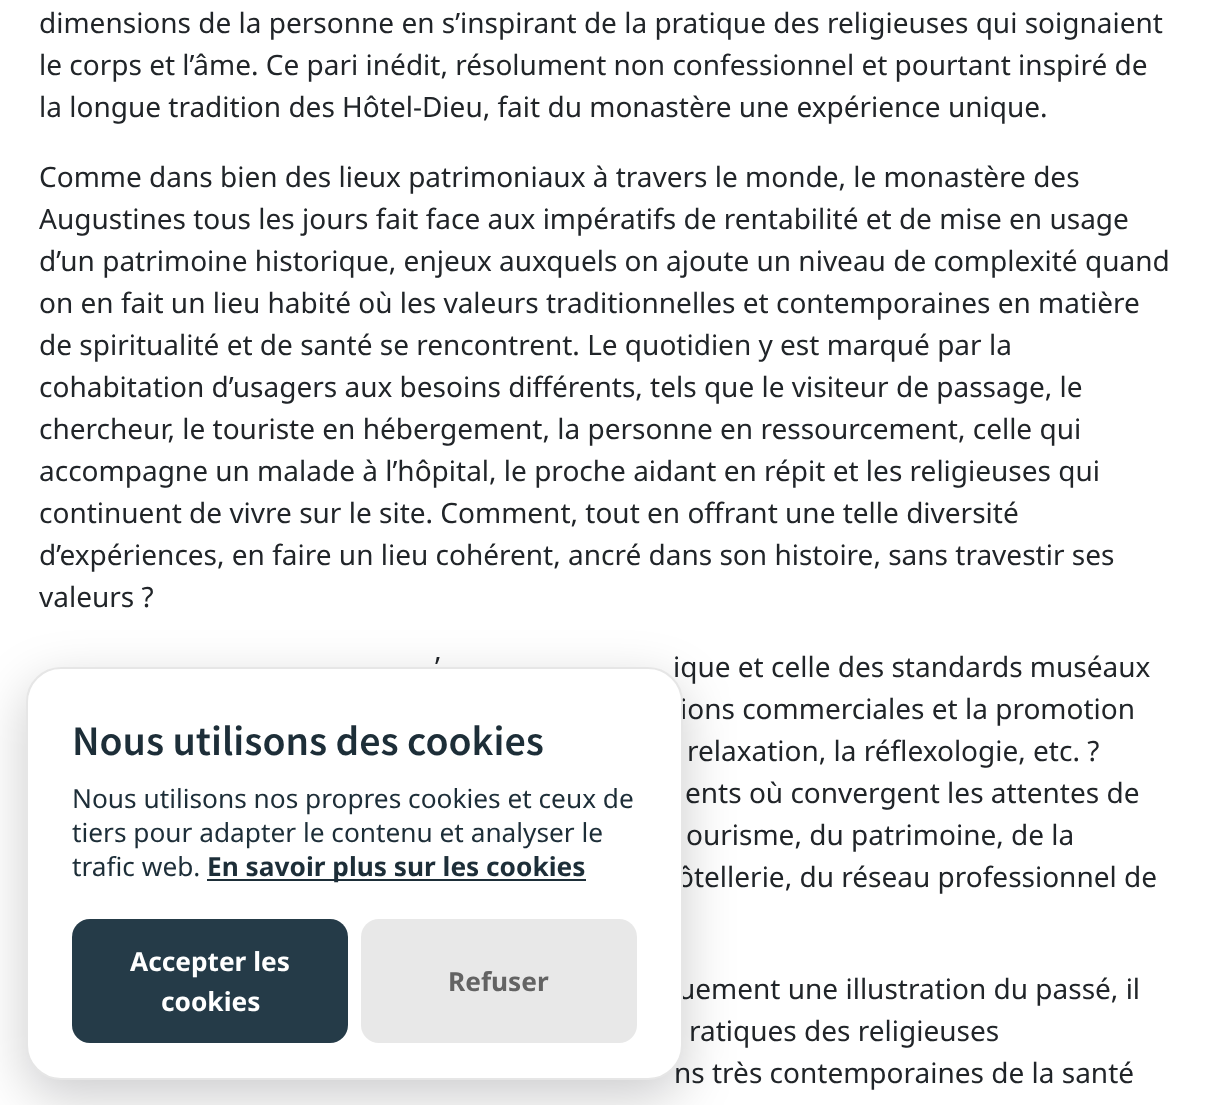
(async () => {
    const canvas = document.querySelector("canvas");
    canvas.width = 1214;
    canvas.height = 1105;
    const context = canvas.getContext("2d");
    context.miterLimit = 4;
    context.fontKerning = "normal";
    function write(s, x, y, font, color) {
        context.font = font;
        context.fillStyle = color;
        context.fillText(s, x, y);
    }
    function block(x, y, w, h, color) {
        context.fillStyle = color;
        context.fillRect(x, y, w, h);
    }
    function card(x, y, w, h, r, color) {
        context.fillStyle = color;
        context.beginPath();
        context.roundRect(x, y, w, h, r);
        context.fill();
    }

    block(0, 0, 1214, 1105, "rgb(255, 255, 255)");
    write("dimensions de la personne en s’inspirant de la pratique des religieuses qui soignaient", 39, 33, "28px Noto Sans", "rgb(33, 37, 41)");
    write("le corps et l’âme. Ce pari inédit, résolument non confessionnel et pourtant inspiré de", 39, 75, "28px Noto Sans", "rgb(33, 37, 41)");
    write("la longue tradition des Hôtel-Dieu, fait du monastère une expérience unique.", 39, 117, "28px Noto Sans", "rgb(33, 37, 41)");
    write("Comme dans bien des lieux patrimoniaux à travers le monde, le monastère des", 39, 187, "28px Noto Sans", "rgb(33, 37, 41)");
    write("Augustines tous les jours fait face aux impératifs de rentabilité et de mise en usage", 39, 229, "28px Noto Sans", "rgb(33, 37, 41)");
    write("d’un patrimoine historique, enjeux auxquels on ajoute un niveau de complexité quand", 39, 271, "28px Noto Sans", "rgb(33, 37, 41)");
    write("on en fait un lieu habité où les valeurs traditionnelles et contemporaines en matière", 39, 313, "28px Noto Sans", "rgb(33, 37, 41)");
    write("de spiritualité et de santé se rencontrent. Le quotidien y est marqué par la", 39, 355, "28px Noto Sans", "rgb(33, 37, 41)");
    write("cohabitation d’usagers aux besoins différents, tels que le visiteur de passage, le", 39, 397, "28px Noto Sans", "rgb(33, 37, 41)");
    write("chercheur, le touriste en hébergement, la personne en ressourcement, celle qui", 39, 439, "28px Noto Sans", "rgb(33, 37, 41)");
    write("accompagne un malade à l’hôpital, le proche aidant en répit et les religieuses qui", 39, 481, "28px Noto Sans", "rgb(33, 37, 41)");
    write("continuent de vivre sur le site. Comment, tout en offrant une telle diversité", 39, 523, "28px Noto Sans", "rgb(33, 37, 41)");
    write("d’expériences, en faire un lieu cohérent, ancré dans son histoire, sans travestir ses", 39, 565, "28px Noto Sans", "rgb(33, 37, 41)");
    write("valeurs ?", 39, 607, "28px Noto Sans", "rgb(33, 37, 41)");
    write("’", 435, 677, "28px Noto Sans", "rgb(33, 37, 41)");
    write("ique et celle des standards muséaux", 673, 677, "28px Noto Sans", "rgb(33, 37, 41)");
    write("ions commerciales et la promotion", 680, 719, "28px Noto Sans", "rgb(33, 37, 41)");
    write("relaxation, la réflexologie, etc. ?", 687, 761, "28px Noto Sans", "rgb(33, 37, 41)");
    write("ents où convergent les attentes de", 685, 803, "28px Noto Sans", "rgb(33, 37, 41)");
    write("ourisme, du patrimoine, de la", 686, 845, "28px Noto Sans", "rgb(33, 37, 41)");
    write("ôtellerie, du réseau professionnel de", 677, 887, "28px Noto Sans", "rgb(33, 37, 41)");
    write("uement une illustration du passé, il", 678, 999, "28px Noto Sans", "rgb(33, 37, 41)");
    write("ratiques des religieuses", 689, 1041, "28px Noto Sans", "rgb(33, 37, 41)");
    write("ns très contemporaines de la santé", 674, 1083, "28px Noto Sans", "rgb(33, 37, 41)");
    context.fillStyle = "rgba(2, 2, 3, 0.2)";
    context.filter = "blur(26px)";
    context.beginPath();
    context.roundRect(26, 684, 657, 413, 35);
    context.fill();
    context.filter = "none";
    context.fillStyle = "rgb(255, 255, 255)";
    context.beginPath();
    context.roundRect(27, 668, 655, 411, 34);
    context.fill();
    context.strokeStyle = "rgb(230, 230, 230)";
    context.lineWidth = 2;
    context.stroke();
    write("Nous utilisons des cookies", 72, 755, "600 42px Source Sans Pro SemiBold", "rgb(29, 46, 56)");
    write("Nous utilisons nos propres cookies et ceux de", 72, 808, "26.25px Noto Sans", "rgb(29, 46, 56)");
    write("tiers pour adapter le contenu et analyser le", 72, 842, "26.25px Noto Sans", "rgb(29, 46, 56)");
    write("trafic web.", 72, 876, "26.25px Noto Sans", "rgb(29, 46, 56)");
    block(207, 879, 379, 2, "rgb(29, 46, 56)");
    write("En savoir plus sur les cookies", 207, 876, "bold 26.25px Noto Sans", "rgb(29, 46, 56)");
    card(72, 919, 276, 124, 18, "rgb(37, 59, 72)");
    write("Accepter les", 130, 971, "bold 26.25px Noto Sans", "rgb(255, 255, 255)");
    write("cookies", 161, 1011, "bold 26.25px Noto Sans", "rgb(255, 255, 255)");
    card(361, 919, 276, 124, 18, "rgb(232, 232, 232)");
    write("Refuser", 448, 991, "bold 26.25px Noto Sans", "rgb(99, 99, 99)");
})();
